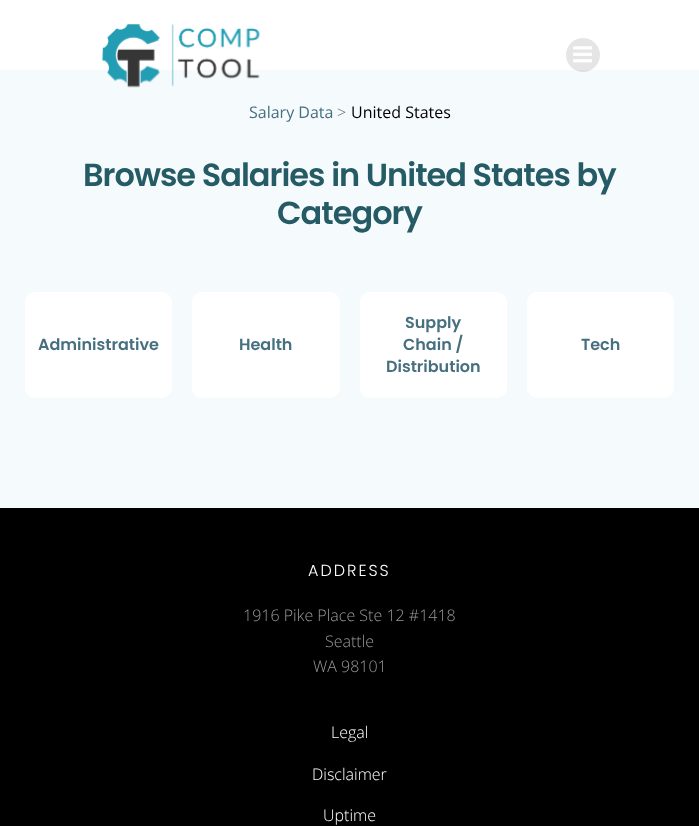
(async () => {
    const canvas = document.querySelector("canvas");
    canvas.width = 699;
    canvas.height = 826;
    const context = canvas.getContext("2d");
    context.miterLimit = 4;
    context.fontKerning = "normal";
    function write(s, x, y, font, color) {
        context.font = font;
        context.fillStyle = color;
        context.fillText(s, x, y);
    }
    function block(x, y, w, h, color) {
        context.fillStyle = color;
        context.fillRect(x, y, w, h);
    }
    function card(x, y, w, h, r, color) {
        context.fillStyle = color;
        context.beginPath();
        context.roundRect(x, y, w, h, r);
        context.fill();
    }
    async function photo(src, x, y, w, h) {
        const img = new Image();
        img.src = src;
        await img.decode();
        context.drawImage(img, x, y, w, h);
    }

    block(0, 0, 699, 826, "rgb(255, 255, 255)");
    block(0, 70, 699, 438, "rgb(245, 250, 253)");
    await photo("media/1.png", 102, 24, 158, 64);
    context.fillStyle = "rgba(0, 0, 0, 0.1)";
    context.beginPath();
    context.arc(583, 55, 17, 0, Math.PI * 2);
    context.fill();
    await photo("media/2.png", 573, 46, 19, 17);
    write("Salary Data", 249, 118, "16px Open Sans", "rgb(70, 112, 127)");
    write(">", 337, 118, "300 16px Open Sans", "rgb(103, 103, 103)");
    write("United States", 351, 118, "16px Open Sans", "rgb(0, 0, 0)");
    context.letterSpacing = "-1px";
    write("Browse Salaries in United States by", 83, 186, "600 32px Poppins", "rgb(37, 91, 101)");
    write("Category", 277, 224, "600 32px Poppins", "rgb(37, 91, 101)");
    card(25, 292, 147, 106, 10, "rgb(255, 255, 255)");
    context.letterSpacing = "0px";
    write("Administrative", 38, 350, "600 16px Poppins", "rgb(70, 112, 127)");
    card(192, 292, 148, 106, 10, "rgb(255, 255, 255)");
    write("Health", 239, 350, "600 16px Poppins", "rgb(70, 112, 127)");
    card(360, 292, 147, 106, 10, "rgb(255, 255, 255)");
    write("Supply", 405, 328, "600 16px Poppins", "rgb(70, 112, 127)");
    write("Chain /", 403, 350, "600 16px Poppins", "rgb(70, 112, 127)");
    write("Distribution", 386, 372, "600 16px Poppins", "rgb(70, 112, 127)");
    card(527, 292, 147, 106, 10, "rgb(255, 255, 255)");
    write("Tech", 581, 350, "600 16px Poppins", "rgb(70, 112, 127)");
    block(0, 508, 699, 318, "rgb(0, 0, 0)");
    context.letterSpacing = "2px";
    write("ADDRESS", 308, 576, "300 16px Poppins", "rgb(255, 255, 255)");
    context.letterSpacing = "0px";
    write("1916 Pike Place Ste 12 #1418", 243, 621, "300 16px Open Sans", "rgb(153, 153, 153)");
    write("Seattle", 325, 647, "300 16px Open Sans", "rgb(153, 153, 153)");
    write("WA 98101", 313, 672, "300 16px Open Sans", "rgb(153, 153, 153)");
    write("Legal", 331, 738, "300 16px Open Sans", "rgb(255, 255, 255)");
    write("Disclaimer", 312, 780, "300 16px Open Sans", "rgb(255, 255, 255)");
    write("Uptime", 323, 821, "300 16px Open Sans", "rgb(255, 255, 255)");
})();
